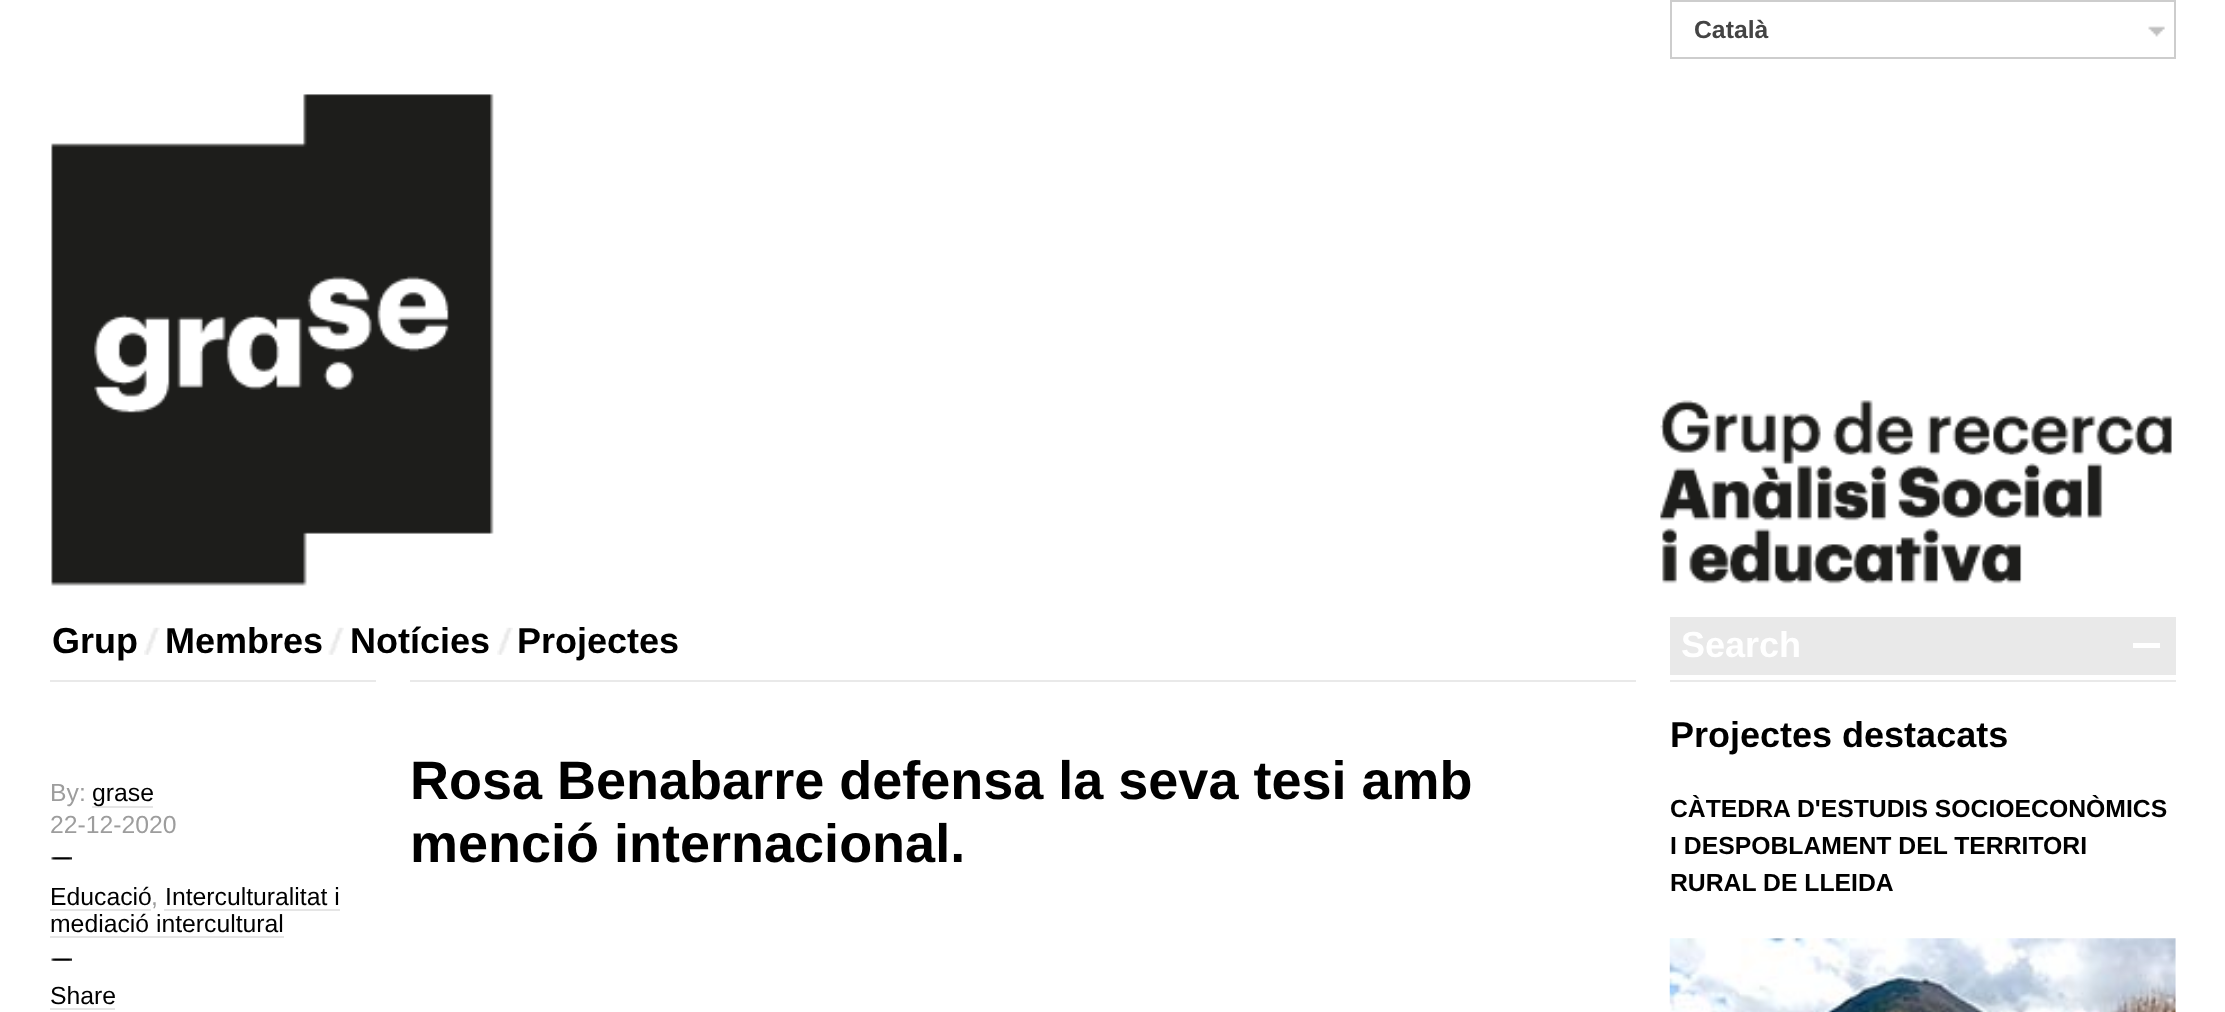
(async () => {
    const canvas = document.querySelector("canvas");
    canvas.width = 2225;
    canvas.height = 1012;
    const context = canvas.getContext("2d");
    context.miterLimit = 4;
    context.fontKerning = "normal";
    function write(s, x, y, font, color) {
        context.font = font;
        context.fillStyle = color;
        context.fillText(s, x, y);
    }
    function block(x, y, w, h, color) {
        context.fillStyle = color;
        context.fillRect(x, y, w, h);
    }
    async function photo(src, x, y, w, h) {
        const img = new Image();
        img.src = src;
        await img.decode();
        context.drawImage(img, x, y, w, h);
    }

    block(0, 0, 2225, 1012, "rgb(255, 255, 255)");
    await photo("media/1.png", 2148, 26, 17, 11);
    context.strokeStyle = "rgb(205, 205, 205)";
    context.lineWidth = 2;
    context.strokeRect(1671, 1, 504, 57);
    write("Català", 1694, 38, "bold 24.75px Liberation Sans", "rgb(68, 68, 68)");
    await photo("media/2.png", 51, 94, 2121, 492);
    write("Grup", 52, 653, "bold 36px Liberation Sans", "rgb(0, 0, 0)");
    await photo("media/3.png", 144, 627, 16, 28);
    write("Membres", 165, 653, "bold 36px Liberation Sans", "rgb(0, 0, 0)");
    await photo("media/4.png", 328, 627, 16, 28);
    write("Notícies", 350, 653, "bold 36px Liberation Sans", "rgb(0, 0, 0)");
    await photo("media/5.png", 497, 627, 16, 28);
    write("Projectes", 517, 653, "bold 36px Liberation Sans", "rgb(0, 0, 0)");
    block(1670, 617, 506, 58, "rgb(233, 233, 233)");
    write("Search", 1681, 657, "bold 36px Liberation Sans", "rgb(255, 255, 255)");
    block(2133, 643, 27, 5, "rgb(255, 255, 255)");
    block(50, 680, 326, 2, "rgb(233, 233, 233)");
    write("By:", 50, 801, "24.75px Liberation Sans", "rgb(157, 157, 157)");
    block(92, 806, 61, 2, "rgb(229, 229, 229)");
    write("grase", 92, 801, "24.75px Liberation Sans", "rgb(0, 0, 0)");
    await photo("media/6.png", 51, 857, 21, 3);
    write("22-12-2020", 50, 833, "24.75px Liberation Sans", "rgb(157, 157, 157)");
    write("Educació", 50, 905, "24.75px Liberation Sans", "rgb(0, 0, 0)");
    block(50, 909, 101, 2, "rgb(229, 229, 229)");
    write(",", 151, 905, "24.75px Liberation Sans", "rgb(157, 157, 157)");
    write("Interculturalitat i", 165, 905, "24.75px Liberation Sans", "rgb(0, 0, 0)");
    write("mediació intercultural", 50, 932, "24.75px Liberation Sans", "rgb(0, 0, 0)");
    block(164, 909, 176, 2, "rgb(229, 229, 229)");
    block(50, 936, 234, 2, "rgb(229, 229, 229)");
    await photo("media/7.png", 51, 958, 21, 3);
    block(50, 1008, 65, 2, "rgb(229, 229, 229)");
    write("Share", 50, 1004, "24.75px Liberation Sans", "rgb(0, 0, 0)");
    block(410, 680, 1226, 2, "rgb(233, 233, 233)");
    write("Rosa Benabarre defensa la seva tesi amb", 410, 799, "bold 54px Liberation Sans", "rgb(0, 0, 0)");
    write("menció internacional.", 410, 862, "bold 54px Liberation Sans", "rgb(0, 0, 0)");
    block(1670, 680, 506, 2, "rgb(233, 233, 233)");
    write("Projectes destacats", 1670, 747, "bold 36px Liberation Sans", "rgb(0, 0, 0)");
    write("CÀTEDRA D'ESTUDIS SOCIOECONÒMICS", 1670, 817, "bold 24.75px Liberation Sans", "rgb(0, 0, 0)");
    write("I DESPOBLAMENT DEL TERRITORI", 1670, 854, "bold 24.75px Liberation Sans", "rgb(0, 0, 0)");
    write("RURAL DE LLEIDA", 1670, 891, "bold 24.75px Liberation Sans", "rgb(0, 0, 0)");
    await photo("media/8.png", 1669, 938, 507, 74);
})();
